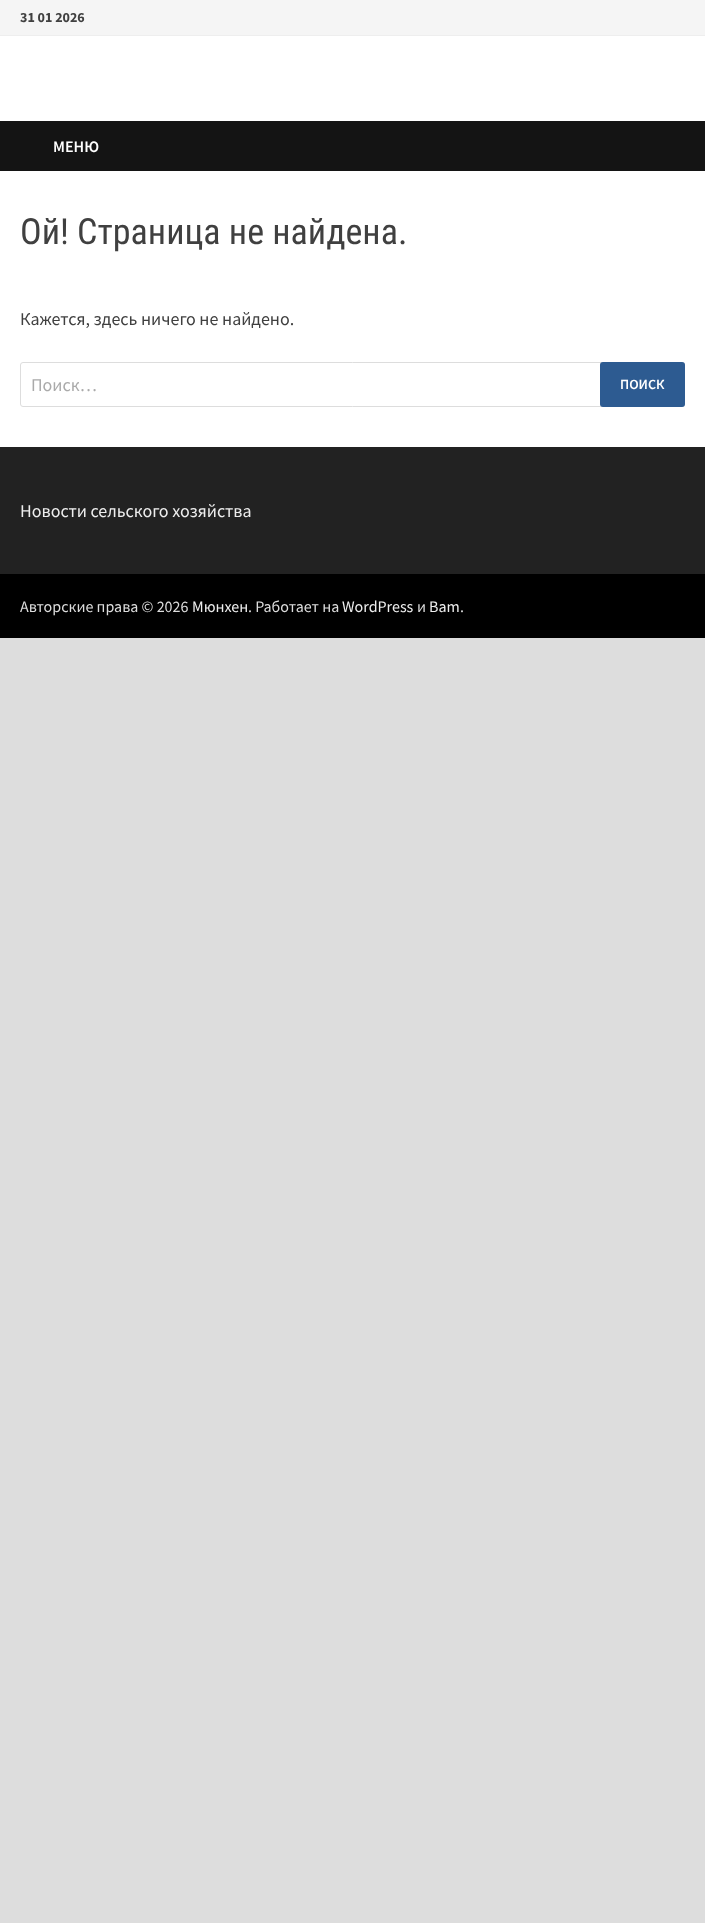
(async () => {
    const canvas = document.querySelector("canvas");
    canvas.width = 705;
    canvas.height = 1923;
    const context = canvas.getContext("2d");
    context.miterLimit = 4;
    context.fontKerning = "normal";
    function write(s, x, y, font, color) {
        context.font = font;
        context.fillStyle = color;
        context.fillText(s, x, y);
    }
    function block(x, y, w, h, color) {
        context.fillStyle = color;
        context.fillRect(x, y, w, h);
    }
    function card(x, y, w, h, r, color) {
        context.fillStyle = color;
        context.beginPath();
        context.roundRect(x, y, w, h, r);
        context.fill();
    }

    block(0, 0, 705, 1923, "rgb(221, 221, 221)");
    block(0, 36, 705, 411, "rgb(255, 255, 255)");
    block(0, 0, 705, 35, "rgb(245, 245, 245)");
    block(0, 35, 705, 1, "rgb(238, 238, 238)");
    write("31 01 2026", 20, 22, "bold 14px Source Sans Pro", "rgb(64, 64, 64)");
    block(0, 121, 705, 50, "rgb(20, 20, 20)");
    write("МЕНЮ", 53, 152, "600 16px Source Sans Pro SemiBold", "rgb(255, 255, 255)");
    write("Ой! Страница не найдена.", 20, 244, "36px Roboto Condensed", "rgb(64, 64, 64)");
    write("Кажется, здесь ничего не найдено.", 20, 325, "18px Source Sans Pro", "rgb(64, 64, 64)");
    context.beginPath();
    context.roundRect(20.5, 362.5, 664, 44, 2.5);
    context.strokeStyle = "rgb(221, 221, 221)";
    context.stroke();
    write("Поиск…", 31, 391, "18px Source Sans Pro", "rgb(170, 170, 170)");
    card(600, 362, 85, 45, 3, "rgb(45, 91, 145)");
    write("ПОИСК", 620, 389, "600 14px Source Sans Pro SemiBold", "rgb(255, 255, 255)");
    block(0, 447, 705, 127, "rgb(34, 34, 34)");
    write("Новости сельского хозяйства", 20, 517, "18px Source Sans Pro", "rgb(238, 238, 238)");
    block(0, 574, 705, 64, "rgb(0, 0, 0)");
    write("Авторские права © 2026", 20, 612, "16px Source Sans Pro", "rgb(221, 221, 221)");
    write("Мюнхен", 192, 612, "16px Source Sans Pro", "rgb(238, 238, 238)");
    write(". Работает на", 248, 612, "16px Source Sans Pro", "rgb(221, 221, 221)");
    write("WordPress", 342, 612, "16px Source Sans Pro", "rgb(238, 238, 238)");
    write("и", 417, 612, "16px Source Sans Pro", "rgb(221, 221, 221)");
    write("Bam", 429, 612, "16px Source Sans Pro", "rgb(238, 238, 238)");
    write(".", 460, 612, "16px Source Sans Pro", "rgb(221, 221, 221)");
})();
